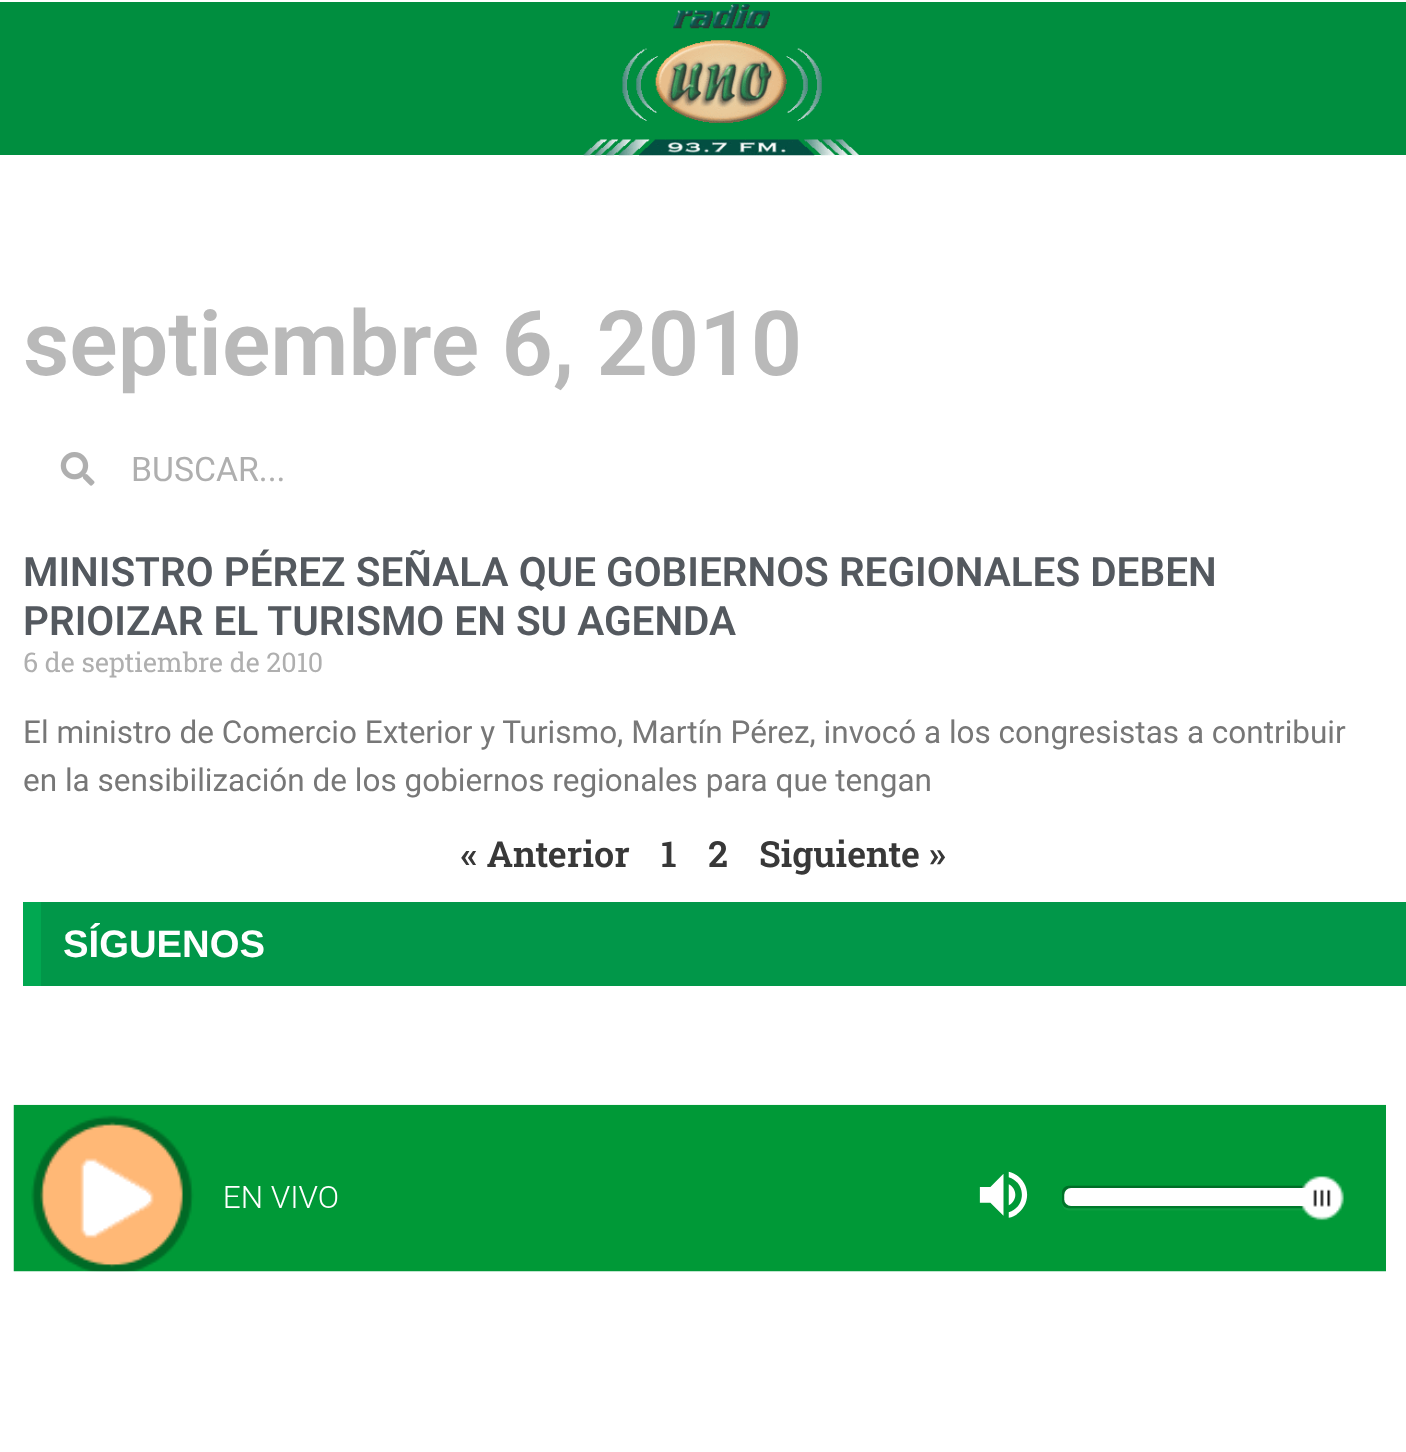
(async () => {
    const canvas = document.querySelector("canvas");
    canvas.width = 1406;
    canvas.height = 1452;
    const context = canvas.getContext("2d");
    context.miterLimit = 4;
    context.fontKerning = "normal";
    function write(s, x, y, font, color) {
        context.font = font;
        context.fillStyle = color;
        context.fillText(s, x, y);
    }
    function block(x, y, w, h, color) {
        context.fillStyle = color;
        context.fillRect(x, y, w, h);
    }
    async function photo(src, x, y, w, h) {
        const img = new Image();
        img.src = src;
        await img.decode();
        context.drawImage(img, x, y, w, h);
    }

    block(0, 0, 1406, 1452, "rgb(255, 255, 255)");
    block(0, 2, 1406, 153, "rgb(0, 142, 63)");
    await photo("media/1.png", 583, 4, 276, 152);
    write("septiembre 6, 2010", 23, 375, "600 90px Roboto", "rgb(185, 185, 185)");
    await photo("media/2.png", 60, 452, 35, 34);
    write("BUSCAR...", 131, 481, "33.75px Roboto", "rgb(175, 175, 175)");
    write("MINISTRO PÉREZ SEÑALA QUE GOBIERNOS REGIONALES DEBEN", 23, 586, "600 40.5px Roboto", "rgb(84, 89, 95)");
    write("PRIOIZAR EL TURISMO EN SU AGENDA", 23, 635, "600 40.5px Roboto", "rgb(84, 89, 95)");
    write("6 de septiembre de 2010", 23, 672, "27px Roboto Slab", "rgb(175, 175, 175)");
    write("El ministro de Comercio Exterior y Turismo, Martín Pérez, invocó a los congresistas a contribuir", 23, 743, "31.5px Roboto", "rgb(119, 119, 119)");
    write("en la sensibilización de los gobiernos regionales para que tengan", 23, 791, "31.5px Roboto", "rgb(119, 119, 119)");
    write("« Anterior", 461, 867, "600 36px Roboto Slab", "rgb(56, 56, 56)");
    write("1", 661, 867, "600 36px Roboto Slab", "rgb(56, 56, 56)");
    write("2", 708, 867, "600 36px Roboto Slab", "rgb(56, 56, 56)");
    write("Siguiente »", 759, 867, "600 36px Roboto Slab", "rgb(56, 56, 56)");
    block(41, 902, 1365, 84, "rgb(1, 151, 73)");
    block(23, 902, 18, 84, "rgb(1, 168, 81)");
    write("SÍGUENOS", 63, 957, "bold 38.25px Liberation Sans", "rgb(255, 255, 255)");
    await photo("media/3.png", 13, 1104, 1373, 168);
})();
